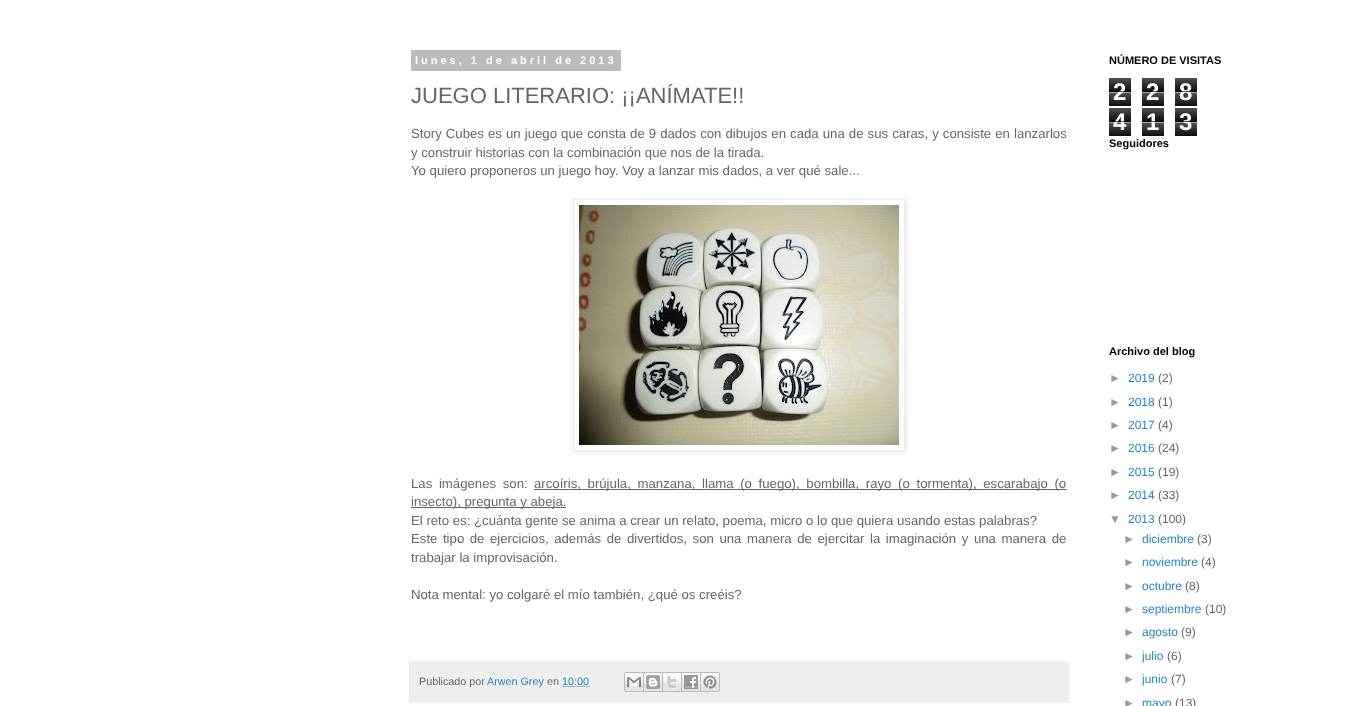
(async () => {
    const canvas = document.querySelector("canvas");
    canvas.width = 1348;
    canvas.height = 706;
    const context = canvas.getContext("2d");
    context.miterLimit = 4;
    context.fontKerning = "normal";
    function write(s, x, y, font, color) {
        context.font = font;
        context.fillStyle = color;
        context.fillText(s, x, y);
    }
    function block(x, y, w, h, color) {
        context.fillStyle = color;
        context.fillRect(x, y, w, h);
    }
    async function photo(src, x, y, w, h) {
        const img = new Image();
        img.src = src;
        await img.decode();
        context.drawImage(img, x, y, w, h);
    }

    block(0, 0, 1348, 706, "rgb(255, 255, 255)");
    block(411, 50, 210, 21, "rgb(187, 187, 187)");
    context.letterSpacing = "3px";
    write("lunes, 1 de abril de 2013", 415, 64, "bold 11px Liberation Sans", "rgb(255, 255, 255)");
    context.letterSpacing = "0px";
    write("JUEGO LITERARIO: ¡¡ANÍMATE!!", 411, 103, "22px Liberation Sans", "rgb(102, 102, 102)");
    context.wordSpacing = "0.4px";
    write("Story Cubes es un juego que consta de 9 dados con dibujos en cada una de sus caras, y consiste en lanzarlos", 411, 138, "13.2px Liberation Sans", "rgb(102, 102, 102)");
    context.wordSpacing = "0px";
    write("y construir historias con la combinación que nos de la tirada.", 411, 157, "13.2px Liberation Sans", "rgb(102, 102, 102)");
    write("Yo quiero proponeros un juego hoy. Voy a lanzar mis dados, a ver qué sale...", 411, 175, "13.2px Liberation Sans", "rgb(102, 102, 102)");
    context.save();
    context.beginPath();
    context.moveTo(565, 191);
    context.lineTo(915, 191);
    context.lineTo(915, 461);
    context.lineTo(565, 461);
    context.closePath();
    context.moveTo(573, 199);
    context.lineTo(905, 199);
    context.lineTo(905, 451);
    context.lineTo(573, 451);
    context.closePath();
    context.clip("evenodd");
    context.fillStyle = "rgba(0, 0, 0, 0.1)";
    context.filter = "blur(2.5px)";
    context.beginPath();
    context.rect(574, 200, 332, 252);
    context.fill();
    context.filter = "none";
    context.restore();
    context.strokeStyle = "rgb(238, 238, 238)";
    context.strokeRect(573.5, 199.5, 331, 251);
    await photo("media/1.png", 579, 205, 320, 240);
    context.wordSpacing = "3px";
    write("Las imágenes son:", 411, 488, "13.2px Liberation Sans", "rgb(102, 102, 102)");
    block(534, 489, 533, 1, "rgb(102, 102, 102)");
    write("arcoíris, brújula, manzana, llama (o fuego), bombilla, rayo (o tormenta), escarabajo (o", 534, 488, "13.2px Liberation Sans", "rgb(102, 102, 102)");
    block(411, 507, 155, 1, "rgb(102, 102, 102)");
    context.wordSpacing = "0px";
    write("insecto), pregunta y abeja.", 411, 506, "13.2px Liberation Sans", "rgb(102, 102, 102)");
    write("El reto es: ¿cuánta gente se anima a crear un relato, poema, micro o lo que quiera usando estas palabras?", 411, 525, "13.2px Liberation Sans", "rgb(102, 102, 102)");
    context.wordSpacing = "1.9px";
    write("Este tipo de ejercicios, además de divertidos, son una manera de ejercitar la imaginación y una manera de", 411, 543, "13.2px Liberation Sans", "rgb(102, 102, 102)");
    context.wordSpacing = "0px";
    write("trabajar la improvisación.", 411, 562, "13.2px Liberation Sans", "rgb(102, 102, 102)");
    write("Nota mental: yo colgaré el mío también, ¿qué os creéis?", 411, 599, "13.2px Liberation Sans", "rgb(102, 102, 102)");
    block(409, 661, 660, 42, "rgb(238, 238, 238)");
    write("Publicado por", 419, 685, "10.75px Liberation Sans", "rgb(102, 102, 102)");
    write("Arwen Grey", 487, 685, "10.75px Liberation Sans", "rgb(34, 136, 187)");
    write("en", 547, 685, "10.75px Liberation Sans", "rgb(102, 102, 102)");
    write("10:00", 562, 685, "10.75px Liberation Sans", "rgb(34, 136, 187)");
    context.beginPath();
    context.moveTo(562.5, 686.5);
    context.lineTo(589.5, 686.5);
    context.strokeStyle = "rgb(34, 136, 187)";
    context.setLineDash([1, 1]);
    context.stroke();
    await photo("media/2.png", 624, 672, 20, 20);
    await photo("media/3.png", 644, 672, 19, 20);
    await photo("media/4.png", 663, 672, 19, 20);
    await photo("media/5.png", 682, 672, 19, 20);
    await photo("media/6.png", 701, 672, 19, 20);
    write("NÚMERO DE VISITAS", 1109, 64, "bold 11px Liberation Sans", "rgb(0, 0, 0)");
    await photo("media/7.png", 1109, 78, 22, 28);
    write("2", 1113, 100, "bold 24px Liberation Sans", "rgb(255, 255, 255)");
    block(1109, 91, 22, 1, "rgba(0, 0, 0, 0.65)");
    block(1109, 92, 22, 1, "rgba(255, 255, 255, 0.65)");
    await photo("media/7.png", 1142, 78, 22, 28);
    write("2", 1146, 100, "bold 24px Liberation Sans", "rgb(255, 255, 255)");
    block(1142, 91, 22, 1, "rgba(0, 0, 0, 0.65)");
    block(1142, 92, 22, 1, "rgba(255, 255, 255, 0.65)");
    await photo("media/7.png", 1175, 78, 22, 28);
    write("8", 1179, 100, "bold 24px Liberation Sans", "rgb(255, 255, 255)");
    block(1175, 91, 22, 1, "rgba(0, 0, 0, 0.65)");
    block(1175, 92, 22, 1, "rgba(255, 255, 255, 0.65)");
    await photo("media/7.png", 1109, 108, 22, 28);
    write("4", 1113, 130, "bold 24px Liberation Sans", "rgb(255, 255, 255)");
    block(1109, 121, 22, 1, "rgba(0, 0, 0, 0.65)");
    block(1109, 122, 22, 1, "rgba(255, 255, 255, 0.65)");
    await photo("media/7.png", 1142, 108, 22, 28);
    write("1", 1146, 130, "bold 24px Liberation Sans", "rgb(255, 255, 255)");
    block(1142, 121, 22, 1, "rgba(0, 0, 0, 0.65)");
    block(1142, 122, 22, 1, "rgba(255, 255, 255, 0.65)");
    await photo("media/7.png", 1175, 108, 22, 28);
    write("3", 1179, 130, "bold 24px Liberation Sans", "rgb(255, 255, 255)");
    block(1175, 121, 22, 1, "rgba(0, 0, 0, 0.65)");
    block(1175, 122, 22, 1, "rgba(255, 255, 255, 0.65)");
    write("Seguidores", 1109, 147, "bold 11px Liberation Sans", "rgb(0, 0, 0)");
    write("Archivo del blog", 1109, 355, "bold 11px Liberation Sans", "rgb(0, 0, 0)");
    write("►", 1109, 382, "12px Liberation Sans", "rgb(153, 153, 153)");
    write("2019", 1128, 382, "12px Liberation Sans", "rgb(34, 136, 187)");
    write("(2)", 1158, 382, "12px Liberation Sans", "rgb(102, 102, 102)");
    write("►", 1109, 406, "12px Liberation Sans", "rgb(153, 153, 153)");
    write("2018", 1128, 406, "12px Liberation Sans", "rgb(34, 136, 187)");
    write("(1)", 1158, 406, "12px Liberation Sans", "rgb(102, 102, 102)");
    write("►", 1109, 429, "12px Liberation Sans", "rgb(153, 153, 153)");
    write("2017", 1128, 429, "12px Liberation Sans", "rgb(34, 136, 187)");
    write("(4)", 1158, 429, "12px Liberation Sans", "rgb(102, 102, 102)");
    write("►", 1109, 452, "12px Liberation Sans", "rgb(153, 153, 153)");
    write("2016", 1128, 452, "12px Liberation Sans", "rgb(34, 136, 187)");
    write("(24)", 1158, 452, "12px Liberation Sans", "rgb(102, 102, 102)");
    write("►", 1109, 476, "12px Liberation Sans", "rgb(153, 153, 153)");
    write("2015", 1128, 476, "12px Liberation Sans", "rgb(34, 136, 187)");
    write("(19)", 1158, 476, "12px Liberation Sans", "rgb(102, 102, 102)");
    write("►", 1109, 499, "12px Liberation Sans", "rgb(153, 153, 153)");
    write("2014", 1128, 499, "12px Liberation Sans", "rgb(34, 136, 187)");
    write("(33)", 1158, 499, "12px Liberation Sans", "rgb(102, 102, 102)");
    write("▼", 1109, 523, "12px Liberation Sans", "rgb(153, 153, 153)");
    write("2013", 1128, 523, "12px Liberation Sans", "rgb(34, 136, 187)");
    write("(100)", 1158, 523, "12px Liberation Sans", "rgb(102, 102, 102)");
    write("►", 1123, 543, "12px Liberation Sans", "rgb(153, 153, 153)");
    write("diciembre", 1142, 543, "12px Liberation Sans", "rgb(34, 136, 187)");
    write("(3)", 1197, 543, "12px Liberation Sans", "rgb(102, 102, 102)");
    write("►", 1123, 566, "12px Liberation Sans", "rgb(153, 153, 153)");
    write("noviembre", 1142, 566, "12px Liberation Sans", "rgb(34, 136, 187)");
    write("(4)", 1201, 566, "12px Liberation Sans", "rgb(102, 102, 102)");
    write("►", 1123, 590, "12px Liberation Sans", "rgb(153, 153, 153)");
    write("octubre", 1142, 590, "12px Liberation Sans", "rgb(34, 136, 187)");
    write("(8)", 1185, 590, "12px Liberation Sans", "rgb(102, 102, 102)");
    write("►", 1123, 613, "12px Liberation Sans", "rgb(153, 153, 153)");
    write("septiembre", 1142, 613, "12px Liberation Sans", "rgb(34, 136, 187)");
    write("(10)", 1205, 613, "12px Liberation Sans", "rgb(102, 102, 102)");
    write("►", 1123, 636, "12px Liberation Sans", "rgb(153, 153, 153)");
    write("agosto", 1142, 636, "12px Liberation Sans", "rgb(34, 136, 187)");
    write("(9)", 1181, 636, "12px Liberation Sans", "rgb(102, 102, 102)");
    write("►", 1123, 660, "12px Liberation Sans", "rgb(153, 153, 153)");
    write("julio", 1142, 660, "12px Liberation Sans", "rgb(34, 136, 187)");
    write("(6)", 1167, 660, "12px Liberation Sans", "rgb(102, 102, 102)");
    write("►", 1123, 683, "12px Liberation Sans", "rgb(153, 153, 153)");
    write("junio", 1142, 683, "12px Liberation Sans", "rgb(34, 136, 187)");
    write("(7)", 1171, 683, "12px Liberation Sans", "rgb(102, 102, 102)");
    write("►", 1123, 707, "12px Liberation Sans", "rgb(153, 153, 153)");
    write("mayo", 1142, 707, "12px Liberation Sans", "rgb(34, 136, 187)");
    write("(13)", 1175, 707, "12px Liberation Sans", "rgb(102, 102, 102)");
})();
